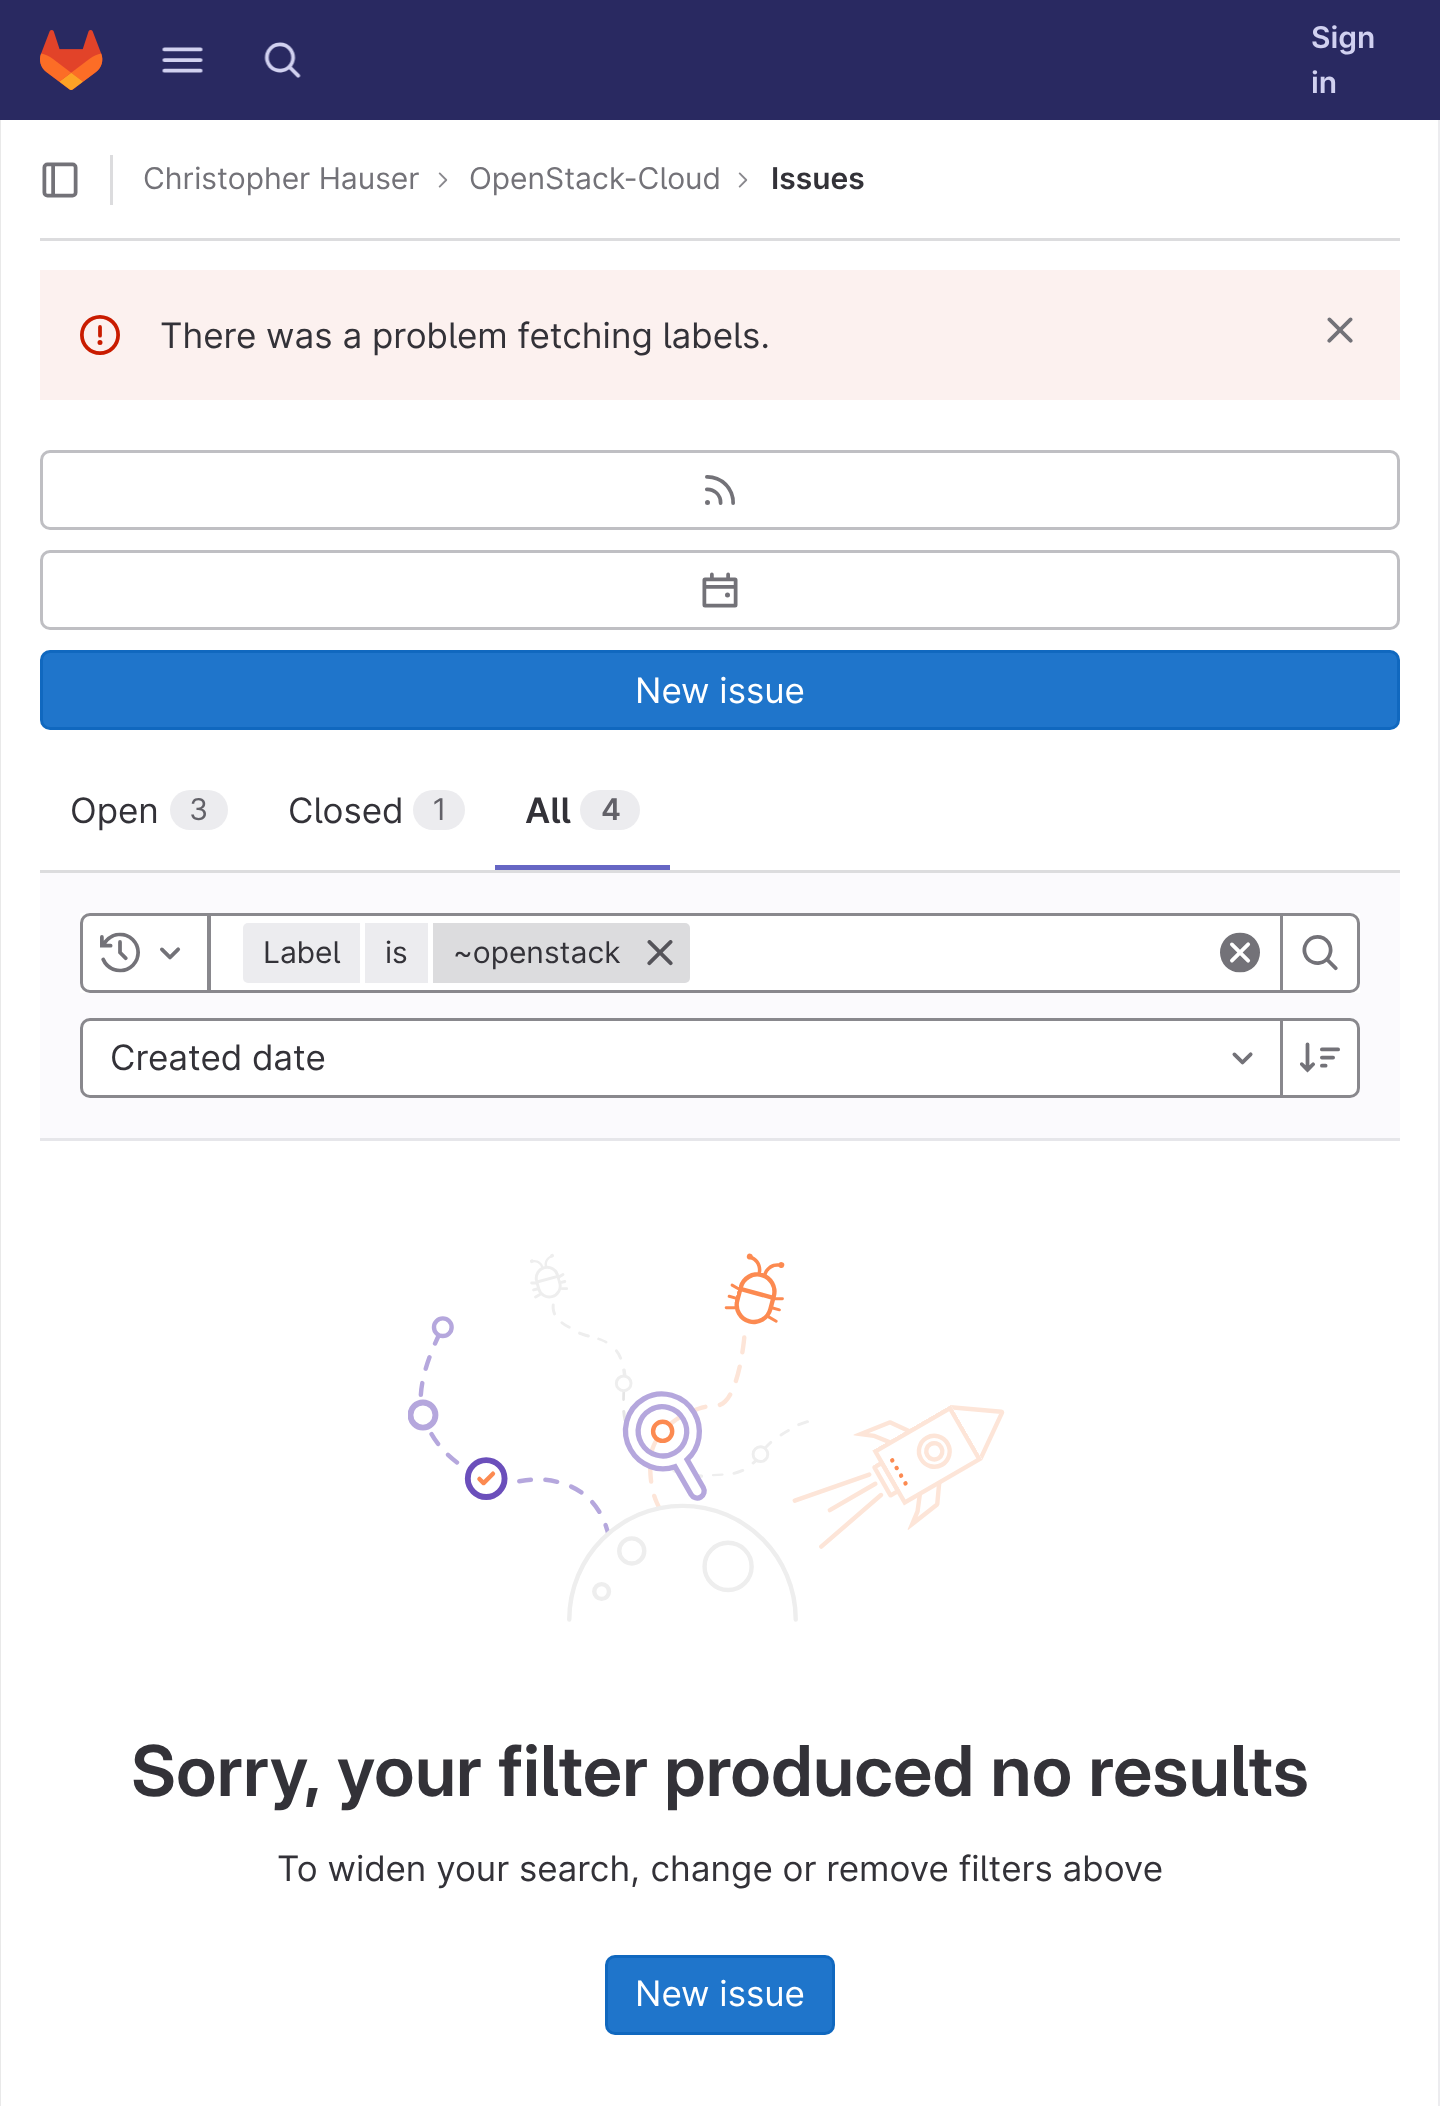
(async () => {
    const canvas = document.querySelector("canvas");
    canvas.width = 1440;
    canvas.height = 2106;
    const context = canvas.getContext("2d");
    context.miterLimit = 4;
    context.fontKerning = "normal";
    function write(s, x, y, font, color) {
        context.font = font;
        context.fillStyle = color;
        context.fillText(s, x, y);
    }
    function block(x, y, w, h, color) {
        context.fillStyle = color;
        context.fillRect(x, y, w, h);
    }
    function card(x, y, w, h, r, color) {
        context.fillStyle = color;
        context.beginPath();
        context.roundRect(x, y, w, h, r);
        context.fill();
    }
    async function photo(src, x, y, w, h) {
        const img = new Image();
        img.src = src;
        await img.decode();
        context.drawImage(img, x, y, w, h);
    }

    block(0, 0, 1440, 2106, "rgb(255, 255, 255)");
    block(0, 0, 1440, 120, "rgb(41, 41, 97)");
    await photo("media/1.png", 40, 30, 63, 60);
    await photo("media/2.png", 162, 47, 41, 26);
    await photo("media/3.png", 264, 42, 37, 36);
    write("Sign", 1311, 48, "600 30px 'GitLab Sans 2'", "rgb(209, 209, 240)");
    write("in", 1311, 93, "600 30px 'GitLab Sans 2'", "rgb(209, 209, 240)");
    block(0, 120, 1, 1986, "rgb(233, 233, 233)");
    block(40, 238, 1360, 3, "rgb(220, 220, 222)");
    await photo("media/4.png", 42, 162, 36, 36);
    block(110, 155, 3, 50, "rgb(220, 220, 222)");
    write("Christopher Hauser", 143, 189, "30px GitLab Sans", "rgb(115, 114, 120)");
    await photo("media/5.png", 438, 172, 10, 16);
    write("OpenStack-Cloud", 469, 189, "30px GitLab Sans", "rgb(115, 114, 120)");
    await photo("media/5.png", 738, 172, 10, 16);
    write("Issues", 771, 189, "600 30px 'GitLab Sans 2'", "rgb(51, 50, 56)");
    block(40, 270, 1360, 130, "rgb(252, 241, 239)");
    await photo("media/6.png", 80, 315, 40, 40);
    write("There was a problem fetching labels.", 160, 348, "35px GitLab Sans", "rgb(51, 50, 56)");
    await photo("media/7.png", 1327, 317, 26, 26);
    block(40, 870, 1360, 3, "rgb(220, 220, 222)");
    context.beginPath();
    context.roundRect(41.5, 451.5, 1357, 77, 8.5);
    context.strokeStyle = "rgb(191, 191, 195)";
    context.lineWidth = 3;
    context.stroke();
    await photo("media/8.png", 705, 475, 30, 30);
    context.beginPath();
    context.roundRect(41.5, 551.5, 1357, 77, 8.5);
    context.stroke();
    await photo("media/9.png", 702, 572, 36, 36);
    context.fillStyle = "rgb(31, 117, 203)";
    context.beginPath();
    context.roundRect(41.5, 651.5, 1357, 77, 8.5);
    context.fill();
    context.strokeStyle = "rgb(16, 104, 191)";
    context.stroke();
    write("New issue", 635, 703, "35px GitLab Sans", "rgb(255, 255, 255)");
    write("Open", 70, 823, "35px GitLab Sans", "rgb(51, 50, 56)");
    card(170, 790, 58, 40, 20, "rgb(236, 236, 239)");
    write("3", 189, 820, "30px GitLab Sans", "rgb(98, 97, 104)");
    write("Closed", 288, 823, "35px GitLab Sans", "rgb(51, 50, 56)");
    card(413, 790, 52, 40, 20, "rgb(236, 236, 239)");
    write("1", 433, 820, "30px GitLab Sans", "rgb(98, 97, 104)");
    block(495, 865, 175, 5, "rgb(102, 102, 196)");
    write("All", 525, 823, "600 35px 'GitLab Sans 2'", "rgb(51, 50, 56)");
    card(580, 790, 60, 40, 20, "rgb(236, 236, 239)");
    write("4", 601, 820, "600 30px 'GitLab Sans 2'", "rgb(98, 97, 104)");
    block(1438, 120, 2, 1986, "rgb(236, 236, 239)");
    block(40, 873, 1360, 265, "rgb(251, 250, 253)");
    block(40, 1138, 1360, 3, "rgb(230, 230, 234)");
    block(80, 913, 10, 80, "rgb(255, 255, 255)");
    context.beginPath();
    context.rect(209.5, 914.5, 1072, 77);
    context.fill();
    context.strokeStyle = "rgb(137, 136, 141)";
    context.stroke();
    context.beginPath();
    context.roundRect(81.5, 914.5, 127, 77, [8.5, 0, 0, 8.5]);
    context.fill();
    context.stroke();
    await photo("media/10.png", 100, 932, 40, 41);
    await photo("media/11.png", 160, 947, 21, 13);
    context.fillStyle = "rgb(236, 236, 239)";
    context.beginPath();
    context.roundRect(243, 923, 117, 60, [5, 0, 0, 5]);
    context.fill();
    write("Label", 263, 963, "30px GitLab Sans", "rgb(51, 50, 56)");
    block(365, 923, 63, 60, "rgb(236, 236, 239)");
    write("is", 385, 963, "30px GitLab Sans", "rgb(51, 50, 56)");
    context.fillStyle = "rgb(220, 220, 222)";
    context.beginPath();
    context.roundRect(433, 923, 257, 60, [0, 5, 5, 0]);
    context.fill();
    write("~openstack", 453, 963, "30px GitLab Sans", "rgb(51, 50, 56)");
    await photo("media/12.png", 647, 940, 26, 26);
    await photo("media/13.png", 1220, 932, 40, 41);
    block(1350, 913, 10, 80, "rgb(255, 255, 255)");
    context.beginPath();
    context.roundRect(1281.5, 914.5, 77, 77, [0, 8.5, 8.5, 0]);
    context.fill();
    context.stroke();
    await photo("media/14.png", 1302, 935, 36, 36);
    context.beginPath();
    context.roundRect(81.5, 1019.5, 1200, 77, [8.5, 0, 0, 8.5]);
    context.fill();
    context.stroke();
    write("Created date", 110, 1070, "35px GitLab Sans", "rgb(51, 50, 56)");
    await photo("media/15.png", 1232, 1052, 21, 13);
    context.fillStyle = "rgb(255, 255, 255)";
    context.beginPath();
    context.roundRect(1281.5, 1019.5, 77, 77, [0, 8.5, 8.5, 0]);
    context.fill();
    context.stroke();
    await photo("media/16.png", 1300, 1042, 40, 31);
    await photo("media/17.png", 408, 1253, 597, 369);
    write("Sorry, your filter produced no results", 131, 1796, "600 70px GitLab Sans", "rgb(51, 50, 56)");
    write("To widen your search, change or remove filters above", 277, 1881, "35px GitLab Sans", "rgb(51, 50, 56)");
    context.fillStyle = "rgb(31, 117, 203)";
    context.beginPath();
    context.roundRect(606.5, 1956.5, 227, 77, 8.5);
    context.fill();
    context.strokeStyle = "rgb(16, 104, 191)";
    context.stroke();
    write("New issue", 635, 2006, "35px GitLab Sans", "rgb(255, 255, 255)");
})();
